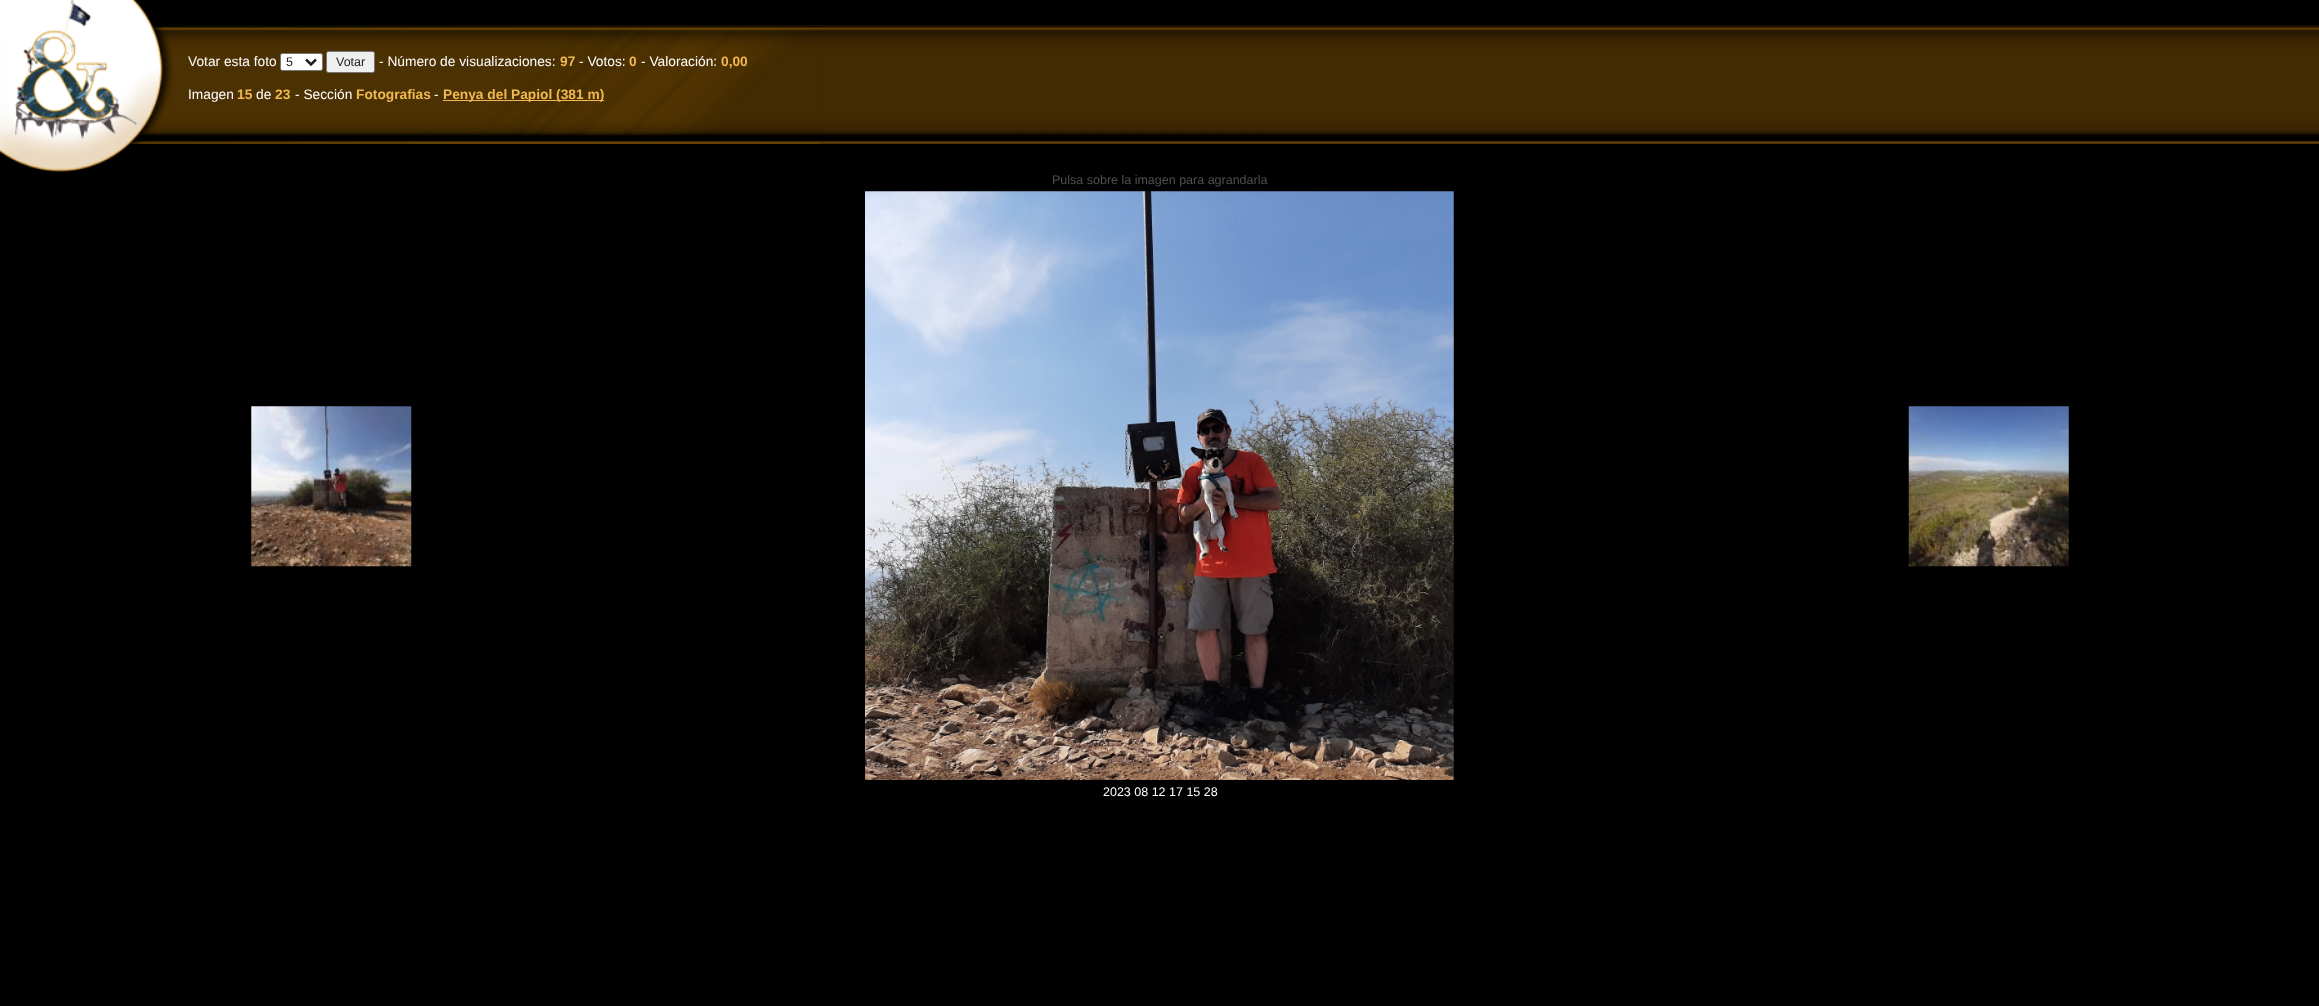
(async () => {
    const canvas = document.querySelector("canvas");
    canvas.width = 2319;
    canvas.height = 1006;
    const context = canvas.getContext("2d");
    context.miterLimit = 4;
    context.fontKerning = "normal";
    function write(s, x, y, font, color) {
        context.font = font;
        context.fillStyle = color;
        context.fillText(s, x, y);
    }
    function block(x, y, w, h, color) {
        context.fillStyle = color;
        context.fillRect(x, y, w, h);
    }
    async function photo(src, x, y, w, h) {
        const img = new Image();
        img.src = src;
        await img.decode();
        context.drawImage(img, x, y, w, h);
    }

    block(0, 0, 2319, 1006, "rgb(0, 0, 0)");
    await photo("media/2.png", 128, 25, 2191, 119);
    await photo("media/3.png", 128, 25, 694, 119);
    await photo("media/1.png", 0, 0, 173, 172);
    write("Votar esta foto", 188, 66, "13.75px Liberation Sans", "rgb(255, 255, 255)");
    context.beginPath();
    context.roundRect(280.5, 53.5, 42, 17, 2);
    context.fill();
    context.strokeStyle = "rgb(118, 118, 118)";
    context.stroke();
    context.beginPath();
    context.moveTo(306, 59.5);
    context.lineTo(311, 64.5);
    context.lineTo(316, 59.5);
    context.strokeStyle = "rgb(33, 33, 33)";
    context.lineWidth = 2.5;
    context.stroke();
    write("5", 286, 66, "12.5px Liberation Sans", "rgb(33, 33, 33)");
    context.fillStyle = "rgb(239, 239, 239)";
    context.beginPath();
    context.roundRect(326.5, 51.5, 48, 21, 2);
    context.fill();
    context.strokeStyle = "rgb(118, 118, 118)";
    context.lineWidth = 1;
    context.stroke();
    write("Votar", 336, 66, "12.5px Liberation Sans", "rgb(33, 33, 33)");
    write("- Número de visualizaciones:", 379, 66, "13.75px Liberation Sans", "rgb(255, 255, 255)");
    write("97", 560, 66, "bold 13.75px Liberation Sans", "rgb(241, 185, 83)");
    write("- Votos:", 579, 66, "13.75px Liberation Sans", "rgb(255, 255, 255)");
    write("0", 629, 66, "bold 13.75px Liberation Sans", "rgb(241, 185, 83)");
    write("- Valoración:", 641, 66, "13.75px Liberation Sans", "rgb(255, 255, 255)");
    write("0,00", 721, 66, "bold 13.75px Liberation Sans", "rgb(241, 185, 83)");
    write("Imagen", 188, 99, "13.75px Liberation Sans", "rgb(255, 255, 255)");
    write("15", 237, 99, "bold 13.75px Liberation Sans", "rgb(241, 185, 83)");
    write("de", 256, 99, "13.75px Liberation Sans", "rgb(255, 255, 255)");
    write("23", 275, 99, "bold 13.75px Liberation Sans", "rgb(241, 185, 83)");
    write("- Sección", 295, 99, "13.75px Liberation Sans", "rgb(255, 255, 255)");
    write("Fotografias", 356, 99, "bold 13.75px Liberation Sans", "rgb(241, 185, 83)");
    write("-", 434, 99, "13.75px Liberation Sans", "rgb(255, 255, 255)");
    block(443, 100, 161, 1, "rgb(241, 185, 83)");
    write("Penya del Papiol (381 m)", 443, 99, "bold 13.75px Liberation Sans", "rgb(241, 185, 83)");
    write("Pulsa sobre la imagen para agrandarla", 1052, 184, "12.5px Liberation Sans", "rgb(80, 80, 80)");
    await photo("media/4.png", 251, 406, 161, 161);
    await photo("media/5.png", 865, 191, 589, 589);
    await photo("media/6.png", 1908, 406, 161, 161);
    write("2023 08 12 17 15 28", 1103, 796, "12.5px Liberation Sans", "rgb(255, 255, 255)");
})();
